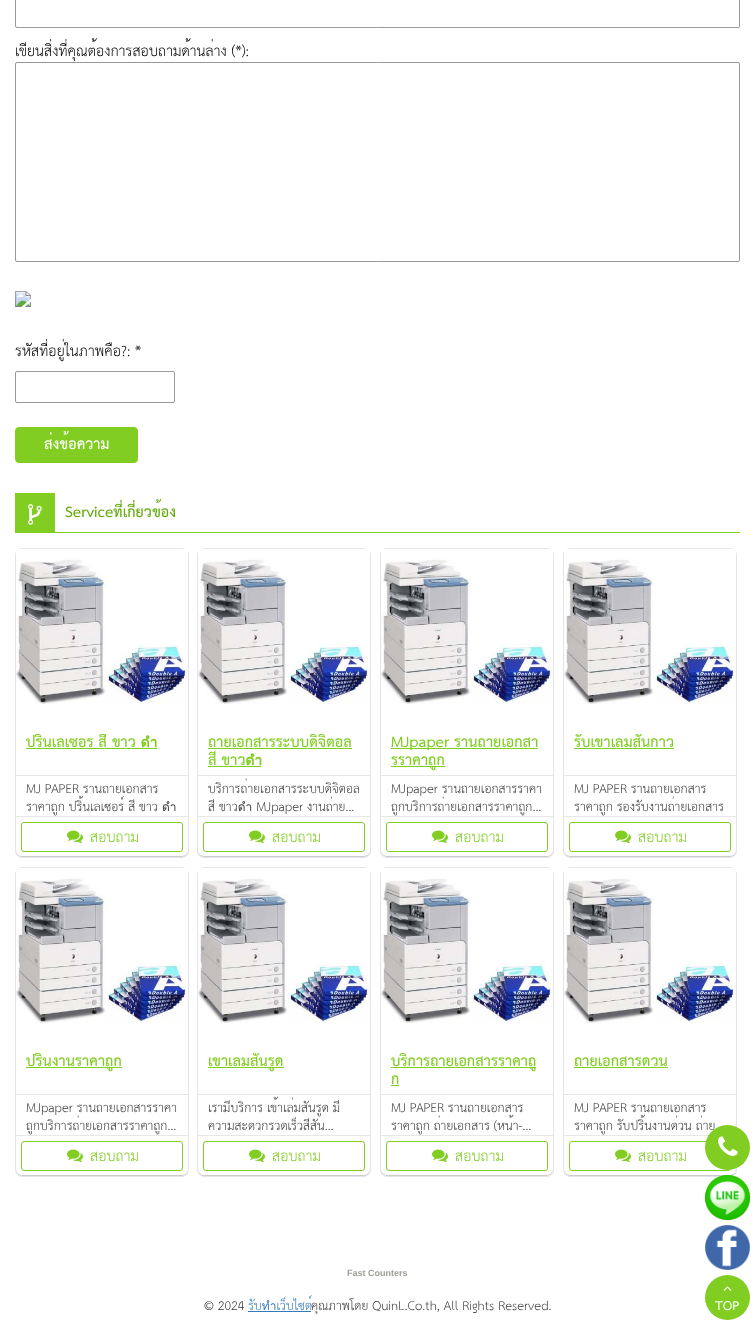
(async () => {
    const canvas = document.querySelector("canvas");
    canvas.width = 755;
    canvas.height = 1330;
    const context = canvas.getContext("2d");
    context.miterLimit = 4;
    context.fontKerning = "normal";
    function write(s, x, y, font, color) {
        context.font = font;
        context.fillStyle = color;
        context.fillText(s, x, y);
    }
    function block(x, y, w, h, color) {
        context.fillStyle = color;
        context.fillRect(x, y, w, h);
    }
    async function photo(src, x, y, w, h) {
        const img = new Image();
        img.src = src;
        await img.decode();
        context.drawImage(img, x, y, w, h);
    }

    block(0, 0, 755, 1330, "rgb(255, 255, 255)");
    context.beginPath();
    context.roundRect(15.5, -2.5, 724, 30, 1.5);
    context.strokeStyle = "rgb(153, 153, 153)";
    context.stroke();
    write("เขียนสิ่งที่คุณต้องการสอบถามด้านล่าง (*):", 15, 56, "14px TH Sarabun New", "rgb(0, 0, 0)");
    context.beginPath();
    context.roundRect(15.5, 62.5, 724, 199, 1.5);
    context.stroke();
    await photo("media/1.png", 15, 291, 16, 16);
    write("รหัสที่อยู่ในภาพคือ?: *", 15, 356, "14px TH Sarabun New", "rgb(0, 0, 0)");
    context.beginPath();
    context.roundRect(15.5, 371.5, 159, 31, 1.5);
    context.stroke();
    context.fillStyle = "rgb(129, 205, 34)";
    context.beginPath();
    context.roundRect(15.5, 427.5, 122, 35, 3.5);
    context.fill();
    context.strokeStyle = "rgb(129, 205, 34)";
    context.stroke();
    write("ส่งข้อความ", 44, 449, "bold 14px TH Sarabun New", "rgb(255, 255, 255)");
    block(15, 493, 40, 40, "rgb(129, 205, 34)");
    await photo("media/2.png", 28, 504, 14, 21);
    block(55, 532, 685, 1, "rgb(129, 205, 34)");
    write("Serviceที่เกี่ยวข้อง", 65, 517, "bold 14px TH Sarabun New", "rgb(101, 171, 13)");
    context.fillStyle = "rgb(204, 204, 204)";
    context.beginPath();
    context.moveTo(16, 850);
    context.lineTo(16, 851);
    context.bezierCurveTo(16, 854, 19, 857, 22, 857);
    context.lineTo(182, 857);
    context.bezierCurveTo(185, 857, 188, 854, 188, 851);
    context.lineTo(188, 850);
    context.bezierCurveTo(188, 853, 185, 856, 182, 856);
    context.lineTo(22, 856);
    context.bezierCurveTo(19, 856, 16, 853, 16, 850);
    context.closePath();
    context.fill();
    context.beginPath();
    context.roundRect(15.5, 548.5, 173, 309, 6.5);
    context.strokeStyle = "rgb(226, 229, 235)";
    context.stroke();
    await photo("media/3.png", 16, 549, 172, 155);
    block(16, 775, 172, 1, "rgb(231, 231, 231)");
    context.save();
    context.beginPath();
    context.rect(26, 734, 152, 36);
    context.clip();
    write("ปริ้นเลเซอร์ สี ขาว ดำ", 26, 747, "bold 14px TH Sarabun New", "rgb(129, 205, 34)");
    context.restore();
    block(26, 748, 131, 1, "rgb(129, 205, 34)");
    block(16, 816, 172, 1, "rgb(231, 231, 231)");
    context.save();
    context.beginPath();
    context.rect(16, 781, 172, 35);
    context.clip();
    write("MJ PAPER ร้านถ่ายเอกสาร", 26, 793, "12px TH Sarabun New", "rgb(58, 58, 58)");
    context.restore();
    write("ราคาถูก ปริ้นเลเซอร์ สี ขาว ดำ", 26, 811, "12px TH Sarabun New", "rgb(58, 58, 58)");
    context.beginPath();
    context.roundRect(21.5, 822.5, 161, 29, 2.5);
    context.strokeStyle = "rgb(129, 205, 34)";
    context.stroke();
    await photo("media/4.png", 67, 830, 16, 14);
    write("สอบถาม", 90, 842, "14px TH Sarabun New", "rgb(129, 205, 34)");
    context.fillStyle = "rgb(204, 204, 204)";
    context.beginPath();
    context.moveTo(198, 850);
    context.lineTo(198, 851);
    context.bezierCurveTo(198, 854, 201, 857, 204, 857);
    context.lineTo(364, 857);
    context.bezierCurveTo(367, 857, 370, 854, 370, 851);
    context.lineTo(370, 850);
    context.bezierCurveTo(370, 853, 367, 856, 364, 856);
    context.lineTo(204, 856);
    context.bezierCurveTo(201, 856, 198, 853, 198, 850);
    context.closePath();
    context.fill();
    context.beginPath();
    context.roundRect(197.5, 548.5, 173, 309, 6.5);
    context.strokeStyle = "rgb(226, 229, 235)";
    context.stroke();
    await photo("media/5.png", 198, 549, 172, 155);
    block(198, 775, 172, 1, "rgb(231, 231, 231)");
    context.save();
    context.beginPath();
    context.rect(208, 734, 152, 36);
    context.clip();
    write("ถ่ายเอกสารระบบดิจิตอล", 208, 747, "bold 14px TH Sarabun New", "rgb(129, 205, 34)");
    context.restore();
    block(208, 748, 144, 1, "rgb(129, 205, 34)");
    context.save();
    context.beginPath();
    context.rect(208, 734, 152, 36);
    context.clip();
    write("สี ขาวดำ", 208, 765, "bold 14px TH Sarabun New", "rgb(129, 205, 34)");
    context.restore();
    block(208, 766, 53, 1, "rgb(129, 205, 34)");
    block(198, 816, 172, 1, "rgb(231, 231, 231)");
    write("บริการถ่ายเอกสารระบบดิจิตอล", 208, 793, "12px TH Sarabun New", "rgb(58, 58, 58)");
    write("สี ขาวดำ MJpaper งานถ่าย…", 208, 811, "12px TH Sarabun New", "rgb(58, 58, 58)");
    context.beginPath();
    context.roundRect(203.5, 822.5, 161, 29, 2.5);
    context.strokeStyle = "rgb(129, 205, 34)";
    context.stroke();
    await photo("media/4.png", 249, 830, 16, 14);
    write("สอบถาม", 272, 842, "14px TH Sarabun New", "rgb(129, 205, 34)");
    context.fillStyle = "rgb(204, 204, 204)";
    context.beginPath();
    context.moveTo(381, 850);
    context.lineTo(381, 851);
    context.bezierCurveTo(381, 854, 384, 857, 387, 857);
    context.lineTo(547, 857);
    context.bezierCurveTo(550, 857, 553, 854, 553, 851);
    context.lineTo(553, 850);
    context.bezierCurveTo(553, 853, 550, 856, 547, 856);
    context.lineTo(387, 856);
    context.bezierCurveTo(384, 856, 381, 853, 381, 850);
    context.closePath();
    context.fill();
    context.beginPath();
    context.roundRect(380.5, 548.5, 173, 309, 6.5);
    context.strokeStyle = "rgb(226, 229, 235)";
    context.stroke();
    await photo("media/5.png", 381, 549, 172, 155);
    block(381, 775, 172, 1, "rgb(231, 231, 231)");
    block(391, 748, 147, 1, "rgb(129, 205, 34)");
    context.save();
    context.beginPath();
    context.rect(391, 734, 152, 36);
    context.clip();
    write("MJpaper ร้านถ่ายเอกสา", 391, 747, "bold 14px TH Sarabun New", "rgb(129, 205, 34)");
    context.restore();
    block(391, 766, 54, 1, "rgb(129, 205, 34)");
    write("รราคาถูก", 391, 765, "bold 14px TH Sarabun New", "rgb(129, 205, 34)");
    block(381, 816, 172, 1, "rgb(231, 231, 231)");
    context.save();
    context.beginPath();
    context.rect(381, 781, 172, 35);
    context.clip();
    write("MJpaper ร้านถ่ายเอกสารราคา", 391, 793, "12px TH Sarabun New", "rgb(58, 58, 58)");
    context.restore();
    write("ถูกบริการถ่ายเอกสารราคาถูก…", 391, 811, "12px TH Sarabun New", "rgb(58, 58, 58)");
    context.beginPath();
    context.roundRect(386.5, 822.5, 161, 29, 2.5);
    context.strokeStyle = "rgb(129, 205, 34)";
    context.stroke();
    await photo("media/4.png", 432, 830, 16, 14);
    write("สอบถาม", 455, 842, "14px TH Sarabun New", "rgb(129, 205, 34)");
    context.fillStyle = "rgb(204, 204, 204)";
    context.beginPath();
    context.moveTo(564, 850);
    context.lineTo(564, 851);
    context.bezierCurveTo(564, 854, 567, 857, 570, 857);
    context.lineTo(730, 857);
    context.bezierCurveTo(733, 857, 736, 854, 736, 851);
    context.lineTo(736, 850);
    context.bezierCurveTo(736, 853, 733, 856, 730, 856);
    context.lineTo(570, 856);
    context.bezierCurveTo(567, 856, 564, 853, 564, 850);
    context.closePath();
    context.fill();
    context.beginPath();
    context.roundRect(563.5, 548.5, 173, 309, 6.5);
    context.strokeStyle = "rgb(226, 229, 235)";
    context.stroke();
    await photo("media/5.png", 564, 549, 172, 155);
    block(564, 775, 172, 1, "rgb(231, 231, 231)");
    context.save();
    context.beginPath();
    context.rect(574, 734, 152, 36);
    context.clip();
    write("รับเข้าเล่มสันกาว", 574, 747, "bold 14px TH Sarabun New", "rgb(129, 205, 34)");
    context.restore();
    block(574, 748, 100, 1, "rgb(129, 205, 34)");
    block(564, 816, 172, 1, "rgb(231, 231, 231)");
    context.save();
    context.beginPath();
    context.rect(564, 781, 172, 35);
    context.clip();
    write("MJ PAPER ร้านถ่ายเอกสาร", 574, 793, "12px TH Sarabun New", "rgb(58, 58, 58)");
    context.restore();
    write("ราคาถูก รองรับงานถ่ายเอกสาร", 574, 811, "12px TH Sarabun New", "rgb(58, 58, 58)");
    context.beginPath();
    context.roundRect(569.5, 822.5, 161, 29, 2.5);
    context.strokeStyle = "rgb(129, 205, 34)";
    context.stroke();
    await photo("media/4.png", 615, 830, 16, 14);
    write("สอบถาม", 638, 842, "14px TH Sarabun New", "rgb(129, 205, 34)");
    context.fillStyle = "rgb(204, 204, 204)";
    context.beginPath();
    context.moveTo(16, 1169);
    context.lineTo(16, 1170);
    context.bezierCurveTo(16, 1173, 19, 1176, 22, 1176);
    context.lineTo(182, 1176);
    context.bezierCurveTo(185, 1176, 188, 1173, 188, 1170);
    context.lineTo(188, 1169);
    context.bezierCurveTo(188, 1172, 185, 1175, 182, 1175);
    context.lineTo(22, 1175);
    context.bezierCurveTo(19, 1175, 16, 1172, 16, 1169);
    context.closePath();
    context.fill();
    context.beginPath();
    context.roundRect(15.5, 867.5, 173, 309, 6.5);
    context.strokeStyle = "rgb(226, 229, 235)";
    context.stroke();
    await photo("media/3.png", 16, 868, 172, 155);
    block(16, 1094, 172, 1, "rgb(231, 231, 231)");
    block(26, 1067, 96, 1, "rgb(129, 205, 34)");
    context.save();
    context.beginPath();
    context.rect(26, 1053, 152, 36);
    context.clip();
    write("ปริ้นงานราคาถูก", 26, 1066, "bold 14px TH Sarabun New", "rgb(129, 205, 34)");
    context.restore();
    block(16, 1135, 172, 1, "rgb(231, 231, 231)");
    context.save();
    context.beginPath();
    context.rect(16, 1100, 172, 35);
    context.clip();
    write("MJpaper ร้านถ่ายเอกสารราคา", 26, 1112, "12px TH Sarabun New", "rgb(58, 58, 58)");
    context.restore();
    write("ถูกบริการถ่ายเอกสารราคาถูก…", 26, 1130, "12px TH Sarabun New", "rgb(58, 58, 58)");
    context.beginPath();
    context.roundRect(21.5, 1141.5, 161, 29, 2.5);
    context.strokeStyle = "rgb(129, 205, 34)";
    context.stroke();
    await photo("media/4.png", 67, 1149, 16, 14);
    write("สอบถาม", 90, 1161, "14px TH Sarabun New", "rgb(129, 205, 34)");
    context.fillStyle = "rgb(204, 204, 204)";
    context.beginPath();
    context.moveTo(198, 1169);
    context.lineTo(198, 1170);
    context.bezierCurveTo(198, 1173, 201, 1176, 204, 1176);
    context.lineTo(364, 1176);
    context.bezierCurveTo(367, 1176, 370, 1173, 370, 1170);
    context.lineTo(370, 1169);
    context.bezierCurveTo(370, 1172, 367, 1175, 364, 1175);
    context.lineTo(204, 1175);
    context.bezierCurveTo(201, 1175, 198, 1172, 198, 1169);
    context.closePath();
    context.fill();
    context.beginPath();
    context.roundRect(197.5, 867.5, 173, 309, 6.5);
    context.strokeStyle = "rgb(226, 229, 235)";
    context.stroke();
    await photo("media/5.png", 198, 868, 172, 155);
    block(198, 1094, 172, 1, "rgb(231, 231, 231)");
    block(208, 1067, 76, 1, "rgb(129, 205, 34)");
    context.save();
    context.beginPath();
    context.rect(208, 1053, 152, 36);
    context.clip();
    write("เข้าเล่มสันรูด", 208, 1066, "bold 14px TH Sarabun New", "rgb(129, 205, 34)");
    context.restore();
    block(198, 1135, 172, 1, "rgb(231, 231, 231)");
    write("เรามีบริการ เข้าเล่มสันรูด มี", 208, 1112, "12px TH Sarabun New", "rgb(58, 58, 58)");
    write("ความสะดวกรวดเร็วสีสัน…", 208, 1130, "12px TH Sarabun New", "rgb(58, 58, 58)");
    context.beginPath();
    context.roundRect(203.5, 1141.5, 161, 29, 2.5);
    context.strokeStyle = "rgb(129, 205, 34)";
    context.stroke();
    await photo("media/4.png", 249, 1149, 16, 14);
    write("สอบถาม", 272, 1161, "14px TH Sarabun New", "rgb(129, 205, 34)");
    context.fillStyle = "rgb(204, 204, 204)";
    context.beginPath();
    context.moveTo(381, 1169);
    context.lineTo(381, 1170);
    context.bezierCurveTo(381, 1173, 384, 1176, 387, 1176);
    context.lineTo(547, 1176);
    context.bezierCurveTo(550, 1176, 553, 1173, 553, 1170);
    context.lineTo(553, 1169);
    context.bezierCurveTo(553, 1172, 550, 1175, 547, 1175);
    context.lineTo(387, 1175);
    context.bezierCurveTo(384, 1175, 381, 1172, 381, 1169);
    context.closePath();
    context.fill();
    context.beginPath();
    context.roundRect(380.5, 867.5, 173, 309, 6.5);
    context.strokeStyle = "rgb(226, 229, 235)";
    context.stroke();
    await photo("media/5.png", 381, 868, 172, 155);
    block(381, 1094, 172, 1, "rgb(231, 231, 231)");
    block(391, 1067, 145, 1, "rgb(129, 205, 34)");
    context.save();
    context.beginPath();
    context.rect(391, 1053, 152, 36);
    context.clip();
    write("บริการถ่ายเอกสารราคาถู", 391, 1066, "bold 14px TH Sarabun New", "rgb(129, 205, 34)");
    context.restore();
    write("ก", 391, 1084, "bold 14px TH Sarabun New", "rgb(129, 205, 34)");
    block(391, 1085, 8, 1, "rgb(129, 205, 34)");
    block(381, 1135, 172, 1, "rgb(231, 231, 231)");
    context.save();
    context.beginPath();
    context.rect(381, 1100, 172, 35);
    context.clip();
    write("MJ PAPER ร้านถ่ายเอกสาร", 391, 1112, "12px TH Sarabun New", "rgb(58, 58, 58)");
    context.restore();
    write("ราคาถูก ถ่ายเอกสาร (หน้า-…", 391, 1130, "12px TH Sarabun New", "rgb(58, 58, 58)");
    context.beginPath();
    context.roundRect(386.5, 1141.5, 161, 29, 2.5);
    context.strokeStyle = "rgb(129, 205, 34)";
    context.stroke();
    await photo("media/4.png", 432, 1149, 16, 14);
    write("สอบถาม", 455, 1161, "14px TH Sarabun New", "rgb(129, 205, 34)");
    context.fillStyle = "rgb(204, 204, 204)";
    context.beginPath();
    context.moveTo(564, 1169);
    context.lineTo(564, 1170);
    context.bezierCurveTo(564, 1173, 567, 1176, 570, 1176);
    context.lineTo(730, 1176);
    context.bezierCurveTo(733, 1176, 736, 1173, 736, 1170);
    context.lineTo(736, 1169);
    context.bezierCurveTo(736, 1172, 733, 1175, 730, 1175);
    context.lineTo(570, 1175);
    context.bezierCurveTo(567, 1175, 564, 1172, 564, 1169);
    context.closePath();
    context.fill();
    context.beginPath();
    context.roundRect(563.5, 867.5, 173, 309, 6.5);
    context.strokeStyle = "rgb(226, 229, 235)";
    context.stroke();
    await photo("media/5.png", 564, 868, 172, 155);
    block(564, 1094, 172, 1, "rgb(231, 231, 231)");
    context.save();
    context.beginPath();
    context.rect(574, 1053, 152, 36);
    context.clip();
    write("ถ่ายเอกสารด่วน", 574, 1066, "bold 14px TH Sarabun New", "rgb(129, 205, 34)");
    context.restore();
    block(574, 1067, 94, 1, "rgb(129, 205, 34)");
    block(564, 1135, 145, 1, "rgb(231, 231, 231)");
    context.save();
    context.beginPath();
    context.rect(564, 1100, 172, 35);
    context.clip();
    write("MJ PAPER ร้านถ่ายเอกสาร", 574, 1112, "12px TH Sarabun New", "rgb(58, 58, 58)");
    context.restore();
    write("ราคาถูก รับปริ้นงานด่วน ถ่าย", 574, 1130, "12px TH Sarabun New", "rgb(58, 58, 58)");
    context.beginPath();
    context.roundRect(569.5, 1141.5, 161, 29, 2.5);
    context.strokeStyle = "rgb(129, 205, 34)";
    context.stroke();
    await photo("media/4.png", 615, 1149, 16, 14);
    write("สอบถาม", 638, 1161, "14px TH Sarabun New", "rgb(129, 205, 34)");
    write("Fast Counters", 347, 1276, "bold 9px Liberation Sans", "rgb(159, 159, 151)");
    write("© 2024", 204, 1310, "12px TH Sarabun New", "rgb(58, 58, 58)");
    write("รับทำเว็บไซต์", 248, 1310, "12px TH Sarabun New", "rgb(51, 122, 183)");
    block(248, 1311, 63, 1, "rgb(51, 122, 183)");
    write("คุณภาพโดย QuinL.Co.th, All Rights Reserved.", 311, 1310, "12px TH Sarabun New", "rgb(58, 58, 58)");
    context.fillStyle = "rgb(129, 205, 34)";
    context.beginPath();
    context.arc(727.5, 1147.5, 22.5, 0, Math.PI * 2);
    context.fill();
    await photo("media/6.png", 718, 1136, 20, 20);
    context.beginPath();
    context.arc(727.5, 1197.5, 22.5, 0, Math.PI * 2);
    context.fill();
    await photo("media/7.png", 705, 1175, 45, 45);
    await photo("media/8.png", 705, 1225, 45, 45);
    context.beginPath();
    context.arc(727.5, 1297.5, 22.5, 0, Math.PI * 2);
    context.fill();
    await photo("media/9.png", 723, 1286, 9, 5);
    write("TOP", 715, 1310, "bold 12px TH Sarabun New", "rgb(255, 255, 255)");
})();
